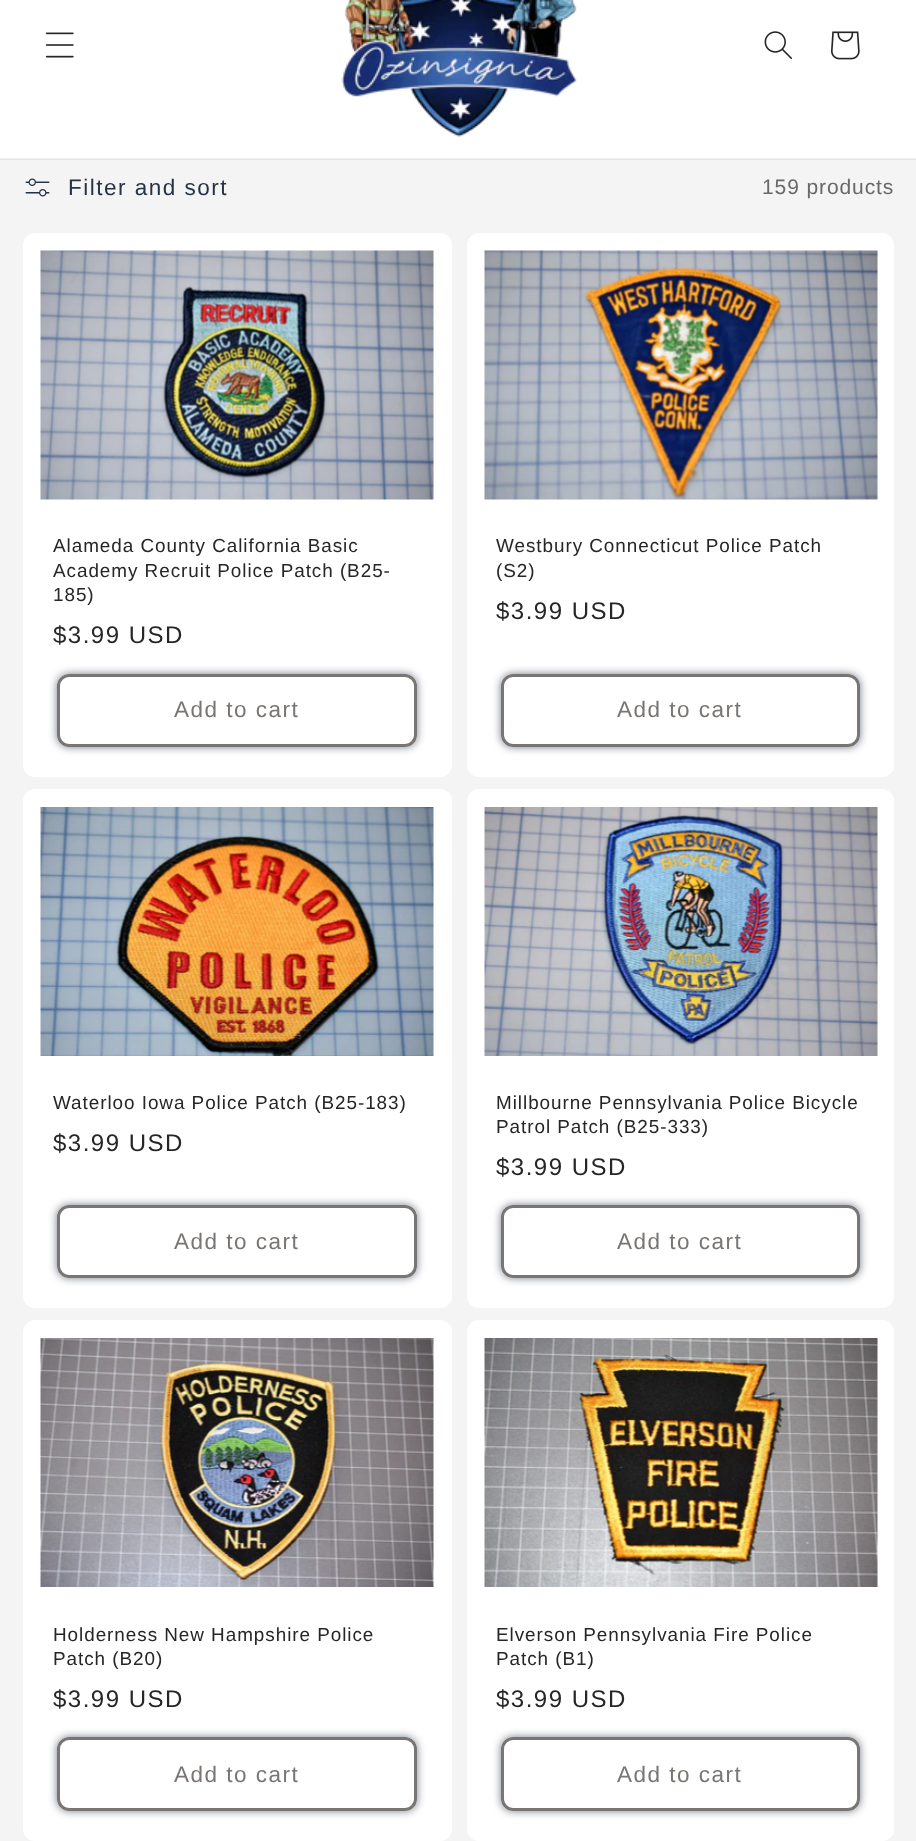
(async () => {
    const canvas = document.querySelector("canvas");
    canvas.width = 916;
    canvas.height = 1841;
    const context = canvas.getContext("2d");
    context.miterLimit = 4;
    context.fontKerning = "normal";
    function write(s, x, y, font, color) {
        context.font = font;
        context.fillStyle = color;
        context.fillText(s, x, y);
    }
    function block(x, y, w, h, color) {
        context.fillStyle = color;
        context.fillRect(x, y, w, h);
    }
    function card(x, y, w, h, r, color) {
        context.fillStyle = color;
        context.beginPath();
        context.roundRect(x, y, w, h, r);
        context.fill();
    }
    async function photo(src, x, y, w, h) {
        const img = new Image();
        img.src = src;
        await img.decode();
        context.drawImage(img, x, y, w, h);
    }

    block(0, 0, 916, 1841, "rgb(244, 244, 244)");
    block(0, 159, 916, 1, "rgb(228, 228, 228)");
    block(0, 0, 916, 158, "rgb(255, 255, 255)");
    block(0, 158, 916, 1, "rgb(238, 238, 238)");
    await photo("media/1.png", 45, 32, 29, 26);
    await photo("media/2.png", 341, 0, 236, 137);
    await photo("media/3.png", 764, 31, 28, 28);
    await photo("media/4.png", 831, 31, 29, 29);
    await photo("media/5.png", 25, 178, 25, 19);
    context.letterSpacing = "1.5px";
    write("Filter and sort", 68, 195, "22.5px Liberation Sans", "rgb(37, 51, 71)");
    context.letterSpacing = "0.9px";
    write("159 products", 762, 194, "21px Liberation Sans", "rgb(103, 104, 105)");
    card(23, 233, 429, 544, 12, "rgb(255, 255, 255)");
    await photo("media/6.png", 40, 250, 394, 250);
    context.letterSpacing = "0.95px";
    write("Alameda County California Basic", 53, 552, "18.9px Liberation Sans", "rgb(38, 38, 38)");
    write("Academy Recruit Police Patch (B25-", 53, 577, "18.9px Liberation Sans", "rgb(38, 38, 38)");
    write("185)", 53, 601, "18.9px Liberation Sans", "rgb(38, 38, 38)");
    context.letterSpacing = "1.5px";
    write("$3.99 USD", 53, 643, "24px Liberation Sans", "rgb(38, 38, 38)");
    context.fillStyle = "rgba(0, 17, 40, 0.55)";
    context.filter = "blur(4px)";
    context.beginPath();
    context.roundRect(57, 674, 360, 73, 12);
    context.fill();
    context.filter = "none";
    card(57, 674, 360, 73, 12, "rgb(255, 255, 255)");
    context.beginPath();
    context.roundRect(58.5, 675.5, 357, 70, 10.5);
    context.strokeStyle = "rgb(255, 255, 255)";
    context.lineWidth = 3;
    context.stroke();
    context.beginPath();
    context.roundRect(58.5, 675.5, 357, 70, 10.5);
    context.strokeStyle = "rgb(121, 117, 114)";
    context.stroke();
    write("Add to cart", 174, 717, "22.5px Liberation Sans", "rgb(121, 117, 114)");
    card(467, 233, 427, 544, 12, "rgb(255, 255, 255)");
    await photo("media/7.png", 484, 250, 394, 250);
    context.letterSpacing = "0.95px";
    write("Westbury Connecticut Police Patch", 496, 552, "18.9px Liberation Sans", "rgb(38, 38, 38)");
    write("(S2)", 496, 577, "18.9px Liberation Sans", "rgb(38, 38, 38)");
    context.letterSpacing = "1.5px";
    write("$3.99 USD", 496, 619, "24px Liberation Sans", "rgb(38, 38, 38)");
    context.fillStyle = "rgba(0, 17, 40, 0.55)";
    context.filter = "blur(4px)";
    context.beginPath();
    context.roundRect(501, 674, 359, 73, 12);
    context.fill();
    context.filter = "none";
    card(501, 674, 359, 73, 12, "rgb(255, 255, 255)");
    context.beginPath();
    context.roundRect(502.5, 675.5, 356, 70, 10.5);
    context.strokeStyle = "rgb(255, 255, 255)";
    context.stroke();
    context.beginPath();
    context.roundRect(502.5, 675.5, 356, 70, 10.5);
    context.strokeStyle = "rgb(121, 117, 114)";
    context.stroke();
    write("Add to cart", 617, 717, "22.5px Liberation Sans", "rgb(121, 117, 114)");
    card(23, 789, 429, 519, 12, "rgb(255, 255, 255)");
    await photo("media/8.png", 40, 807, 394, 249);
    context.letterSpacing = "0.95px";
    write("Waterloo Iowa Police Patch (B25-183)", 53, 1109, "18.9px Liberation Sans", "rgb(38, 38, 38)");
    context.letterSpacing = "1.5px";
    write("$3.99 USD", 53, 1151, "24px Liberation Sans", "rgb(38, 38, 38)");
    context.fillStyle = "rgba(0, 17, 40, 0.55)";
    context.filter = "blur(4px)";
    context.beginPath();
    context.roundRect(57, 1205, 360, 73, 12);
    context.fill();
    context.filter = "none";
    card(57, 1205, 360, 73, 12, "rgb(255, 255, 255)");
    context.beginPath();
    context.roundRect(58.5, 1206.5, 357, 70, 10.5);
    context.strokeStyle = "rgb(255, 255, 255)";
    context.stroke();
    context.beginPath();
    context.roundRect(58.5, 1206.5, 357, 70, 10.5);
    context.strokeStyle = "rgb(121, 117, 114)";
    context.stroke();
    write("Add to cart", 174, 1249, "22.5px Liberation Sans", "rgb(121, 117, 114)");
    card(467, 789, 427, 519, 12, "rgb(255, 255, 255)");
    await photo("media/9.png", 484, 807, 394, 249);
    context.letterSpacing = "0.95px";
    write("Millbourne Pennsylvania Police Bicycle", 496, 1109, "18.9px Liberation Sans", "rgb(38, 38, 38)");
    write("Patrol Patch (B25-333)", 496, 1133, "18.9px Liberation Sans", "rgb(38, 38, 38)");
    context.letterSpacing = "1.5px";
    write("$3.99 USD", 496, 1175, "24px Liberation Sans", "rgb(38, 38, 38)");
    context.fillStyle = "rgba(0, 17, 40, 0.55)";
    context.filter = "blur(4px)";
    context.beginPath();
    context.roundRect(501, 1205, 359, 73, 12);
    context.fill();
    context.filter = "none";
    card(501, 1205, 359, 73, 12, "rgb(255, 255, 255)");
    context.beginPath();
    context.roundRect(502.5, 1206.5, 356, 70, 10.5);
    context.strokeStyle = "rgb(255, 255, 255)";
    context.stroke();
    context.beginPath();
    context.roundRect(502.5, 1206.5, 356, 70, 10.5);
    context.strokeStyle = "rgb(121, 117, 114)";
    context.stroke();
    write("Add to cart", 617, 1249, "22.5px Liberation Sans", "rgb(121, 117, 114)");
    card(23, 1320, 429, 521, 12, "rgb(255, 255, 255)");
    await photo("media/10.png", 40, 1338, 394, 249);
    context.letterSpacing = "0.95px";
    write("Holderness New Hampshire Police", 53, 1641, "18.9px Liberation Sans", "rgb(38, 38, 38)");
    write("Patch (B20)", 53, 1665, "18.9px Liberation Sans", "rgb(38, 38, 38)");
    context.letterSpacing = "1.5px";
    write("$3.99 USD", 53, 1707, "24px Liberation Sans", "rgb(38, 38, 38)");
    context.fillStyle = "rgba(0, 17, 40, 0.55)";
    context.filter = "blur(4px)";
    context.beginPath();
    context.roundRect(57, 1737, 360, 74, 12);
    context.fill();
    context.filter = "none";
    card(57, 1737, 360, 74, 12, "rgb(255, 255, 255)");
    context.beginPath();
    context.roundRect(58.5, 1738.5, 357, 71, 10.5);
    context.strokeStyle = "rgb(255, 255, 255)";
    context.stroke();
    context.beginPath();
    context.roundRect(58.5, 1738.5, 357, 71, 10.5);
    context.strokeStyle = "rgb(121, 117, 114)";
    context.stroke();
    write("Add to cart", 174, 1782, "22.5px Liberation Sans", "rgb(121, 117, 114)");
    card(467, 1320, 427, 521, 12, "rgb(255, 255, 255)");
    await photo("media/11.png", 484, 1338, 394, 249);
    context.letterSpacing = "0.95px";
    write("Elverson Pennsylvania Fire Police", 496, 1641, "18.9px Liberation Sans", "rgb(38, 38, 38)");
    write("Patch (B1)", 496, 1665, "18.9px Liberation Sans", "rgb(38, 38, 38)");
    context.letterSpacing = "1.5px";
    write("$3.99 USD", 496, 1707, "24px Liberation Sans", "rgb(38, 38, 38)");
    context.fillStyle = "rgba(0, 17, 40, 0.55)";
    context.filter = "blur(4px)";
    context.beginPath();
    context.roundRect(501, 1737, 359, 74, 12);
    context.fill();
    context.filter = "none";
    card(501, 1737, 359, 74, 12, "rgb(255, 255, 255)");
    context.beginPath();
    context.roundRect(502.5, 1738.5, 356, 71, 10.5);
    context.strokeStyle = "rgb(255, 255, 255)";
    context.stroke();
    context.beginPath();
    context.roundRect(502.5, 1738.5, 356, 71, 10.5);
    context.strokeStyle = "rgb(121, 117, 114)";
    context.stroke();
    write("Add to cart", 617, 1782, "22.5px Liberation Sans", "rgb(121, 117, 114)");
})();
